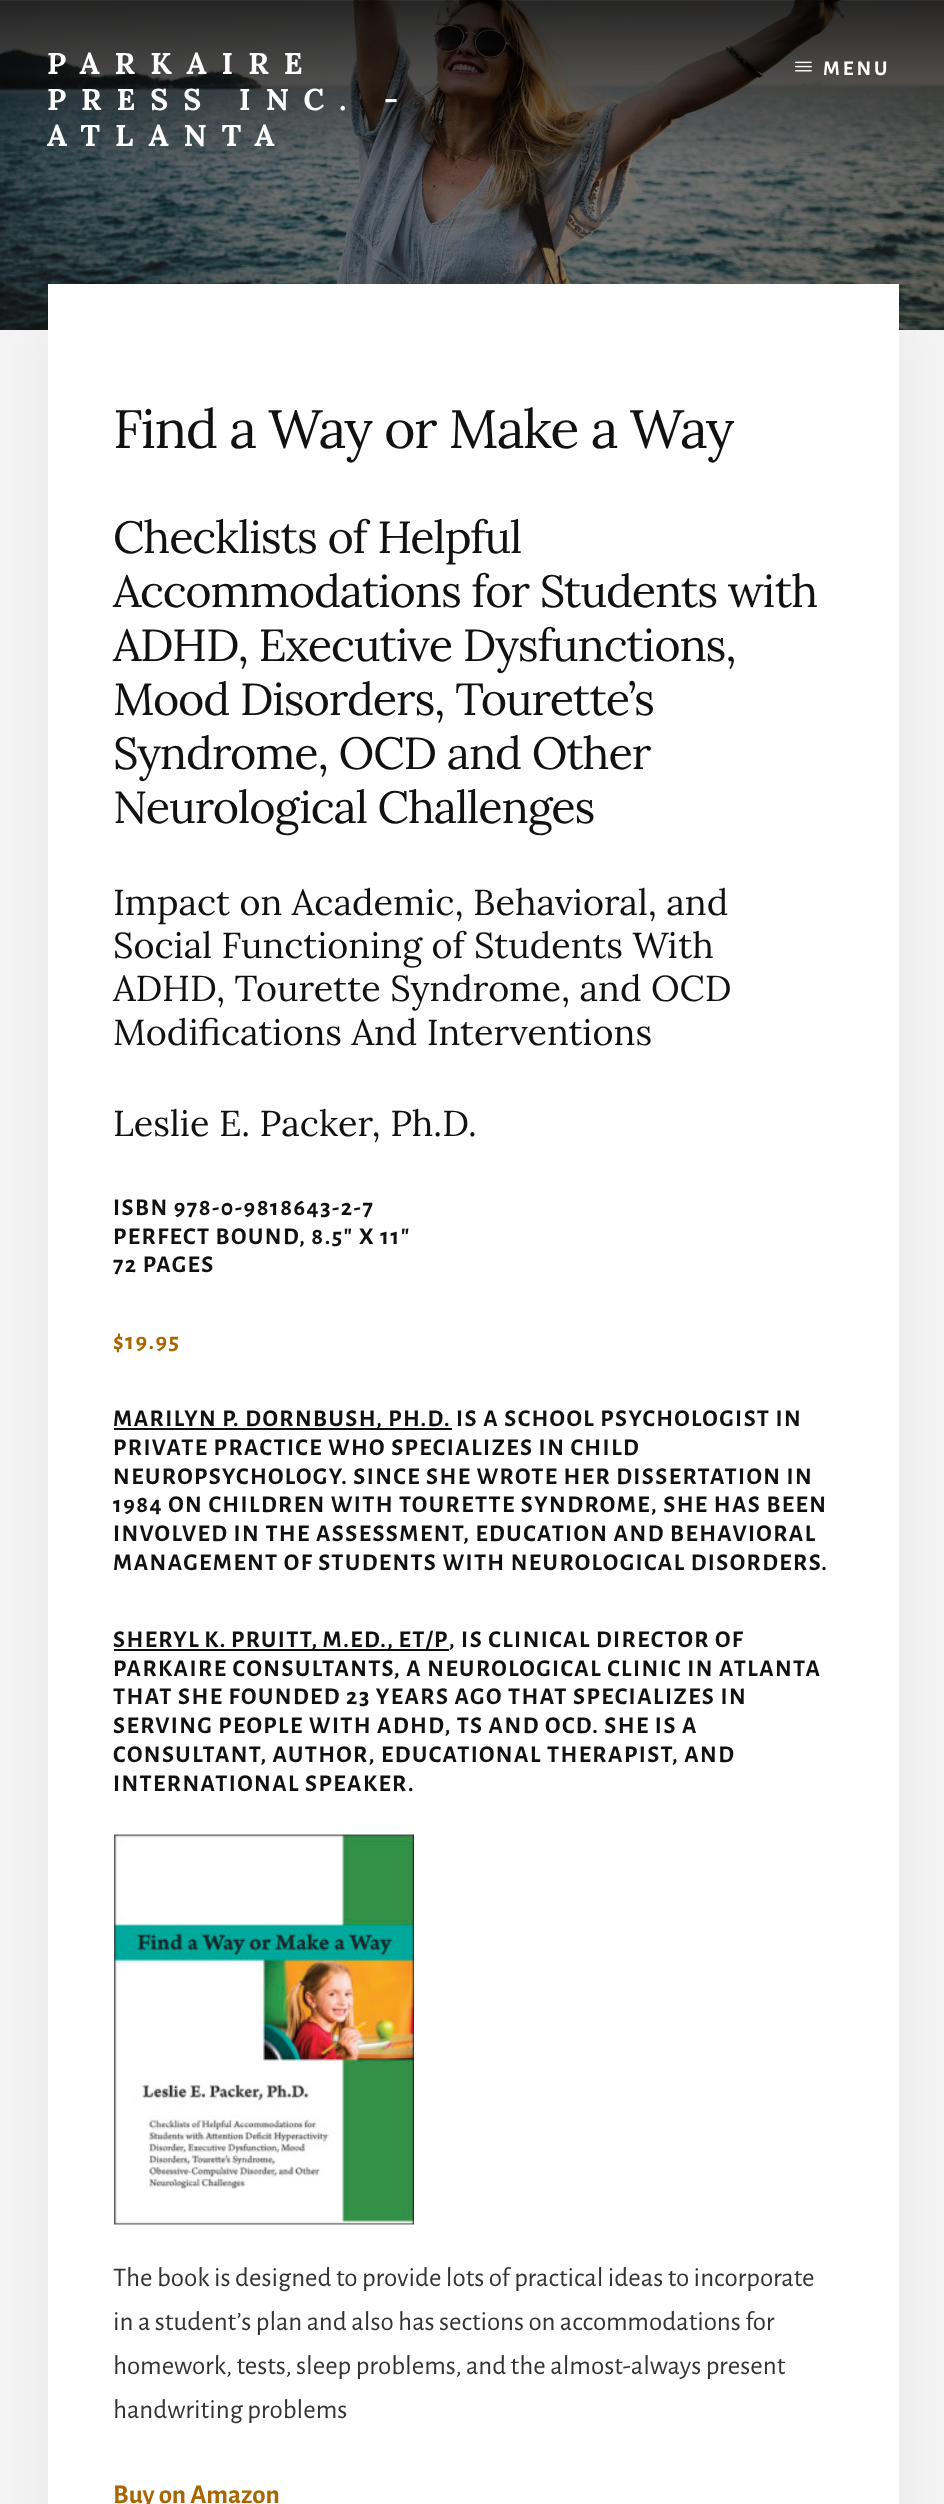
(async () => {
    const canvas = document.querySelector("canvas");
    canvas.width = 944;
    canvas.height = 2504;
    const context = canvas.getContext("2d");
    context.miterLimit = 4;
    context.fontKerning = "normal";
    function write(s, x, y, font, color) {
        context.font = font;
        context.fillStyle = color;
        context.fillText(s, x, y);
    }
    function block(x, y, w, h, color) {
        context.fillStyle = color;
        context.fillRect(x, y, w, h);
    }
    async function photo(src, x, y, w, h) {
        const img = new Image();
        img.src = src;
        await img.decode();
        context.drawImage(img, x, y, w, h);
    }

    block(0, 0, 944, 2504, "rgb(244, 244, 244)");
    await photo("media/1.png", 0, 0, 944, 330);
    context.letterSpacing = "15px";
    write("PARKAIRE", 47, 74, "bold 30px Lora", "rgb(255, 255, 255)");
    write("PRESS INC. -", 47, 110, "bold 30px Lora", "rgb(255, 255, 255)");
    write("ATLANTA", 47, 146, "bold 30px Lora", "rgb(255, 255, 255)");
    await photo("media/2.png", 795, 61, 17, 11);
    context.letterSpacing = "3px";
    write("MENU", 823, 75, "bold 21px Alegreya Sans", "rgb(255, 255, 255)");
    context.fillStyle = "rgba(0, 0, 0, 0.05)";
    context.filter = "blur(30px)";
    context.beginPath();
    context.rect(48, 321, 851, 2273);
    context.fill();
    context.filter = "none";
    block(48, 284, 851, 2220, "rgb(255, 255, 255)");
    context.letterSpacing = "-1.5px";
    write("Find a Way or Make a Way", 113, 448, "54px Lora", "rgb(17, 17, 17)");
    context.letterSpacing = "-1.1px";
    write("Checklists of Helpful", 113, 553, "45px Lora", "rgb(17, 17, 17)");
    write("Accommodations for Students with", 113, 607, "45px Lora", "rgb(17, 17, 17)");
    write("ADHD, Executive Dysfunctions,", 113, 661, "45px Lora", "rgb(17, 17, 17)");
    write("Mood Disorders, Tourette’s", 113, 715, "45px Lora", "rgb(17, 17, 17)");
    write("Syndrome, OCD and Other", 113, 769, "45px Lora", "rgb(17, 17, 17)");
    write("Neurological Challenges", 113, 823, "45px Lora", "rgb(17, 17, 17)");
    context.letterSpacing = "0px";
    write("Impact on Academic, Behavioral, and", 113, 915, "36px Lora", "rgb(17, 17, 17)");
    write("Social Functioning of Students With", 113, 958, "36px Lora", "rgb(17, 17, 17)");
    write("ADHD, Tourette Syndrome, and OCD", 113, 1001, "36px Lora", "rgb(17, 17, 17)");
    write("Modifications And Interventions", 113, 1045, "36px Lora", "rgb(17, 17, 17)");
    write("Leslie E. Packer, Ph.D.", 113, 1136, "36px Lora", "rgb(17, 17, 17)");
    context.letterSpacing = "1.5px";
    write("ISBN 978-0-9818643-2-7", 113, 1215, "bold 24px Alegreya Sans", "rgb(17, 17, 17)");
    write("PERFECT BOUND, 8.5″ X 11″", 113, 1244, "bold 24px Alegreya Sans", "rgb(17, 17, 17)");
    write("72 PAGES", 113, 1272, "bold 24px Alegreya Sans", "rgb(17, 17, 17)");
    write("$19.95", 113, 1349, "bold 24px Alegreya Sans", "rgb(168, 101, 0)");
    block(114, 1428, 338, 2, "rgb(17, 17, 17)");
    write("MARILYN P. DORNBUSH, PH.D. IS A SCHOOL PSYCHOLOGIST IN", 113, 1426, "bold 24px Alegreya Sans", "rgb(17, 17, 17)");
    write("PRIVATE PRACTICE WHO SPECIALIZES IN CHILD", 113, 1455, "bold 24px Alegreya Sans", "rgb(17, 17, 17)");
    write("NEUROPSYCHOLOGY. SINCE SHE WROTE HER DISSERTATION IN", 113, 1484, "bold 24px Alegreya Sans", "rgb(17, 17, 17)");
    write("1984 ON CHILDREN WITH TOURETTE SYNDROME, SHE HAS BEEN", 113, 1512, "bold 24px Alegreya Sans", "rgb(17, 17, 17)");
    write("INVOLVED IN THE ASSESSMENT, EDUCATION AND BEHAVIORAL", 113, 1541, "bold 24px Alegreya Sans", "rgb(17, 17, 17)");
    write("MANAGEMENT OF STUDENTS WITH NEUROLOGICAL DISORDERS.", 113, 1570, "bold 24px Alegreya Sans", "rgb(17, 17, 17)");
    block(114, 1649, 335, 2, "rgb(17, 17, 17)");
    context.wordSpacing = "-1px";
    write("SHERYL K. PRUITT, M.ED., ET/P", 113, 1647, "bold 24px Alegreya Sans", "rgb(17, 17, 17)");
    context.wordSpacing = "0px";
    write(", IS CLINICAL DIRECTOR OF", 449, 1647, "bold 24px Alegreya Sans", "rgb(17, 17, 17)");
    write("PARKAIRE CONSULTANTS, A NEUROLOGICAL CLINIC IN ATLANTA", 113, 1676, "bold 24px Alegreya Sans", "rgb(17, 17, 17)");
    write("THAT SHE FOUNDED 23 YEARS AGO THAT SPECIALIZES IN", 113, 1704, "bold 24px Alegreya Sans", "rgb(17, 17, 17)");
    write("SERVING PEOPLE WITH ADHD, TS AND OCD. SHE IS A", 113, 1733, "bold 24px Alegreya Sans", "rgb(17, 17, 17)");
    write("CONSULTANT, AUTHOR, EDUCATIONAL THERAPIST, AND", 113, 1762, "bold 24px Alegreya Sans", "rgb(17, 17, 17)");
    write("INTERNATIONAL SPEAKER.", 113, 1791, "bold 24px Alegreya Sans", "rgb(17, 17, 17)");
    await photo("media/3.png", 114, 1834, 300, 391);
    context.letterSpacing = "0px";
    write("The book is designed to provide lots of practical ideas to incorporate", 113, 2286, "27px Alegreya Sans", "rgb(51, 51, 51)");
    write("in a student’s plan and also has sections on accommodations for", 113, 2330, "27px Alegreya Sans", "rgb(51, 51, 51)");
    write("homework, tests, sleep problems, and the almost-always present", 113, 2374, "27px Alegreya Sans", "rgb(51, 51, 51)");
    write("handwriting problems", 113, 2418, "27px Alegreya Sans", "rgb(51, 51, 51)");
    write("Buy on Amazon", 113, 2503, "bold 27px Alegreya Sans", "rgb(168, 101, 0)");
})();
